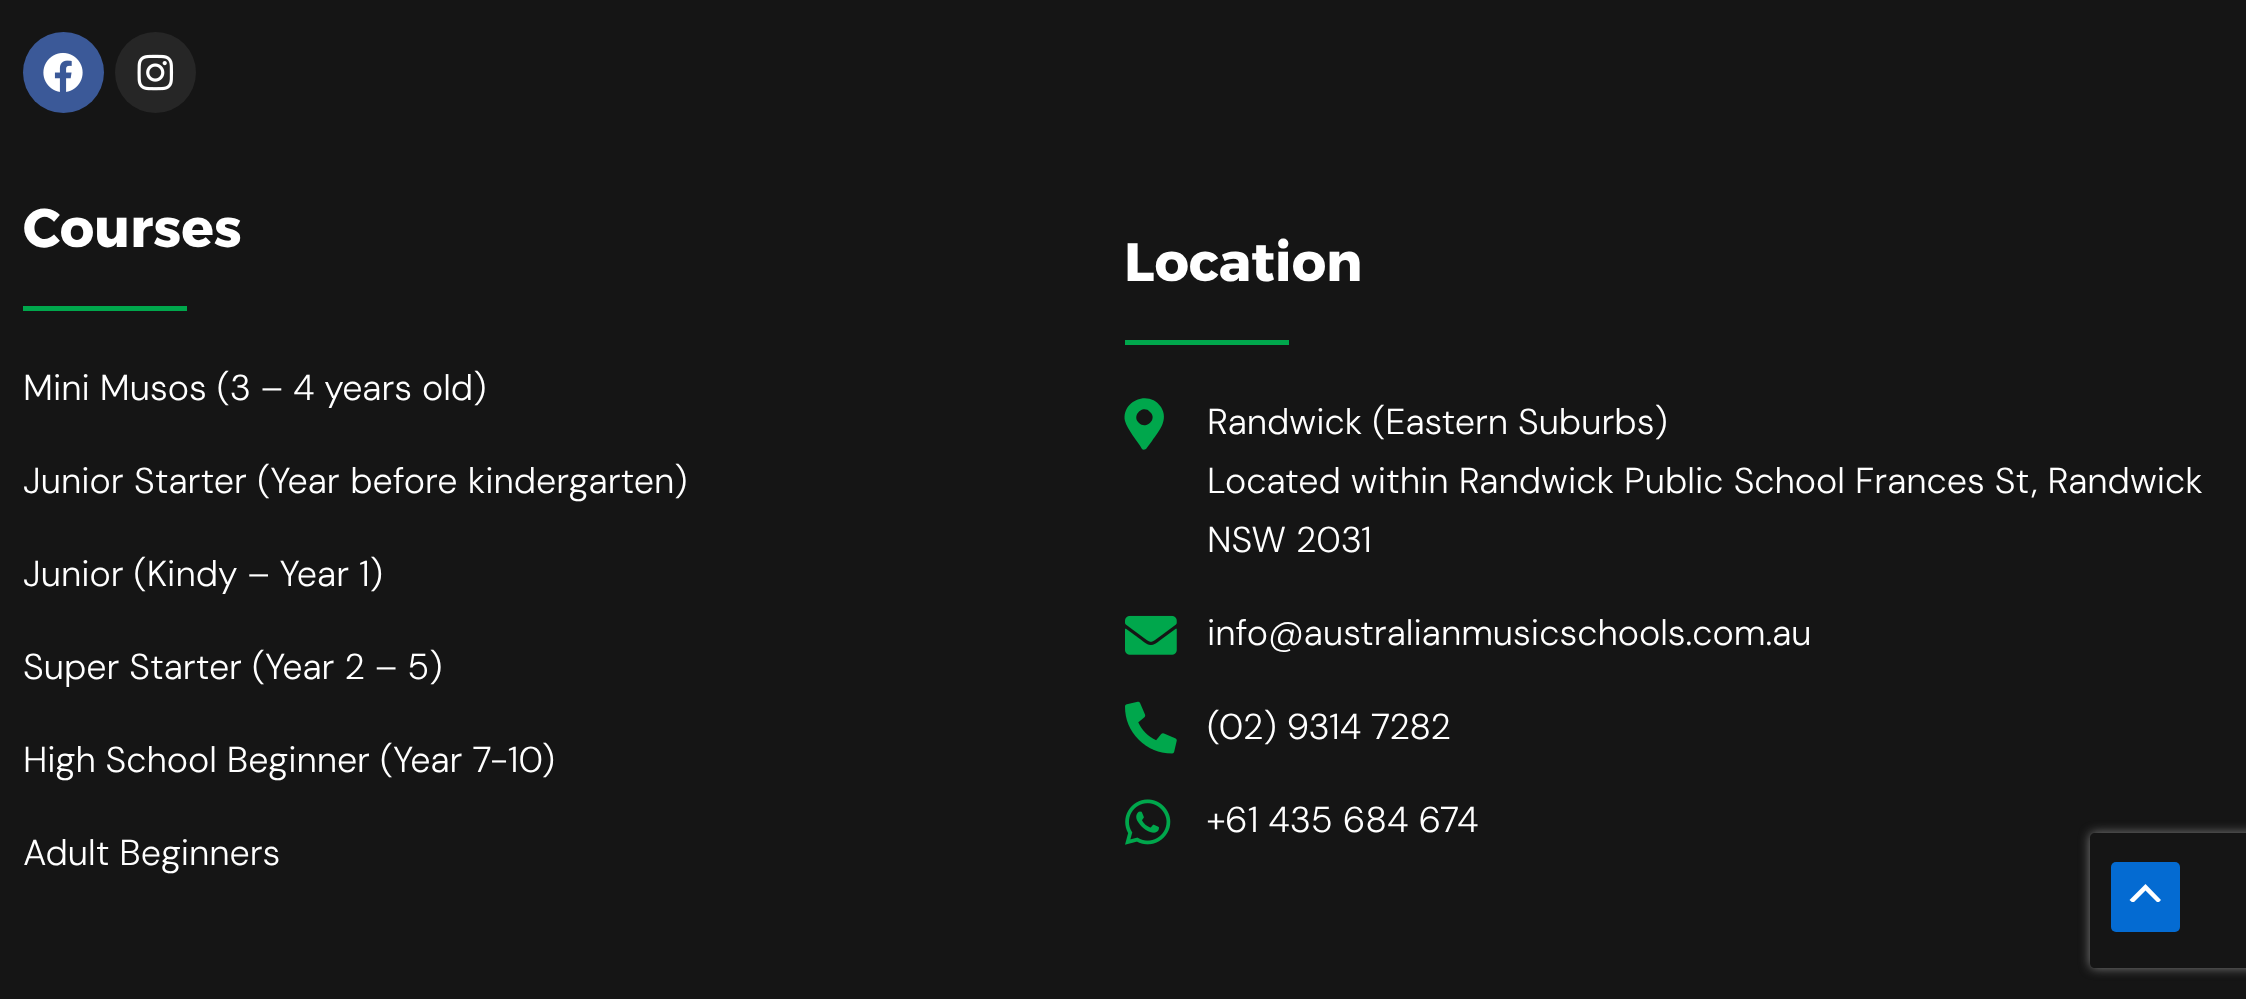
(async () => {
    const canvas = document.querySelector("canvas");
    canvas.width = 2246;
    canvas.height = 999;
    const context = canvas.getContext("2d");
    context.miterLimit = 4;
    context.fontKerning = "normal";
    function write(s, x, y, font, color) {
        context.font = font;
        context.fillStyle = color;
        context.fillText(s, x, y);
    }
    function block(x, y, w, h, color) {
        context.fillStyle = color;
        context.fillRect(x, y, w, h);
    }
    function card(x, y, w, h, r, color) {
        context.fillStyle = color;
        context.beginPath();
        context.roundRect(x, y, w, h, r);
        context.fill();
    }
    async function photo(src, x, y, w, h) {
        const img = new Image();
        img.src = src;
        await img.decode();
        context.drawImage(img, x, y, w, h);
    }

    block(0, 0, 2246, 999, "rgb(21, 21, 21)");
    context.fillStyle = "rgb(59, 89, 152)";
    context.beginPath();
    context.arc(63.5, 72.5, 40.5, 0, Math.PI * 2);
    context.fill();
    await photo("media/1.png", 43, 52, 40, 40);
    context.fillStyle = "rgb(38, 38, 38)";
    context.beginPath();
    context.arc(155.5, 72.5, 40.5, 0, Math.PI * 2);
    context.fill();
    await photo("media/2.png", 137, 54, 37, 37);
    write("Courses", 23, 247, "bold 54px Alexandria", "rgb(255, 255, 255)");
    block(23, 306, 164, 5, "rgb(0, 167, 76)");
    write("Mini Musos (3 – 4 years old)", 23, 400, "300 36px DM Sans", "rgb(255, 255, 255)");
    context.wordSpacing = "0.5px";
    write("Junior Starter (Year before kindergarten)", 23, 493, "300 36px DM Sans", "rgb(255, 255, 255)");
    context.wordSpacing = "0px";
    write("Junior (Kindy – Year 1)", 23, 586, "300 36px DM Sans", "rgb(255, 255, 255)");
    write("Super Starter (Year 2 – 5)", 23, 679, "300 36px DM Sans", "rgb(255, 255, 255)");
    write("High School Beginner (Year 7-10)", 23, 772, "300 36px DM Sans", "rgb(255, 255, 255)");
    write("Adult Beginners", 23, 865, "300 36px DM Sans", "rgb(255, 255, 255)");
    write("Location", 1124, 281, "bold 54px Alexandria", "rgb(255, 255, 255)");
    block(1125, 340, 164, 5, "rgb(0, 167, 76)");
    context.beginPath();
    context.moveTo(1142, 449);
    context.bezierCurveTo(1138, 442, 1127, 429, 1125, 421);
    context.bezierCurveTo(1121, 401, 1149, 389, 1161, 407);
    context.bezierCurveTo(1169, 420, 1159, 431, 1152, 441);
    context.lineTo(1146, 449);
    context.bezierCurveTo(1144, 450, 1143, 450, 1142, 449);
    context.closePath();
    context.moveTo(1139, 423);
    context.bezierCurveTo(1146, 430, 1158, 419, 1150, 412);
    context.bezierCurveTo(1143, 404, 1131, 416, 1139, 423);
    context.closePath();
    context.fill();
    write("Randwick (Eastern Suburbs)", 1207, 434, "300 36px DM Sans", "rgb(255, 255, 255)");
    context.wordSpacing = "0.25px";
    write("Located within Randwick Public School Frances St, Randwick", 1207, 493, "300 36px DM Sans", "rgb(255, 255, 255)");
    context.wordSpacing = "0px";
    write("NSW 2031", 1207, 552, "300 36px DM Sans", "rgb(255, 255, 255)");
    await photo("media/3.png", 1125, 615, 52, 40);
    write("info@australianmusicschools.com.au", 1207, 645, "300 36px DM Sans", "rgb(255, 255, 255)");
    await photo("media/4.png", 1125, 701, 52, 53);
    write("(02) 9314 7282", 1207, 739, "300 36px DM Sans", "rgb(255, 255, 255)");
    await photo("media/5.png", 1125, 799, 46, 46);
    write("+61 435 684 674", 1207, 832, "300 36px DM Sans", "rgb(255, 255, 255)");
    context.save();
    context.beginPath();
    context.moveTo(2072, 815);
    context.lineTo(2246, 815);
    context.lineTo(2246, 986);
    context.lineTo(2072, 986);
    context.closePath();
    context.moveTo(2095, 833);
    context.lineTo(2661, 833);
    context.bezierCurveTo(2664, 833, 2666, 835, 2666, 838);
    context.lineTo(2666, 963);
    context.bezierCurveTo(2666, 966, 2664, 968, 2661, 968);
    context.lineTo(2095, 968);
    context.bezierCurveTo(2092, 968, 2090, 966, 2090, 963);
    context.lineTo(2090, 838);
    context.bezierCurveTo(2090, 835, 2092, 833, 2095, 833);
    context.closePath();
    context.clip("evenodd");
    context.fillStyle = "rgb(128, 128, 128)";
    context.filter = "blur(5.5px)";
    context.beginPath();
    context.roundRect(2090, 833, 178, 135, 5);
    context.fill();
    context.filter = "none";
    context.restore();
    card(2111, 862, 69, 70, 5, "rgb(4, 107, 210)");
    context.save();
    context.beginPath();
    context.rect(2117, 882, 54, 20);
    context.clip();
    context.fillStyle = "rgb(255, 255, 255)";
    context.beginPath();
    context.moveTo(2161, 900);
    context.lineTo(2145.5, 884);
    context.lineTo(2129.5, 900);
    context.lineTo(2133, 903);
    context.lineTo(2145.5, 890.5);
    context.lineTo(2158, 903);
    context.closePath();
    context.fill();
    context.restore();
})();
